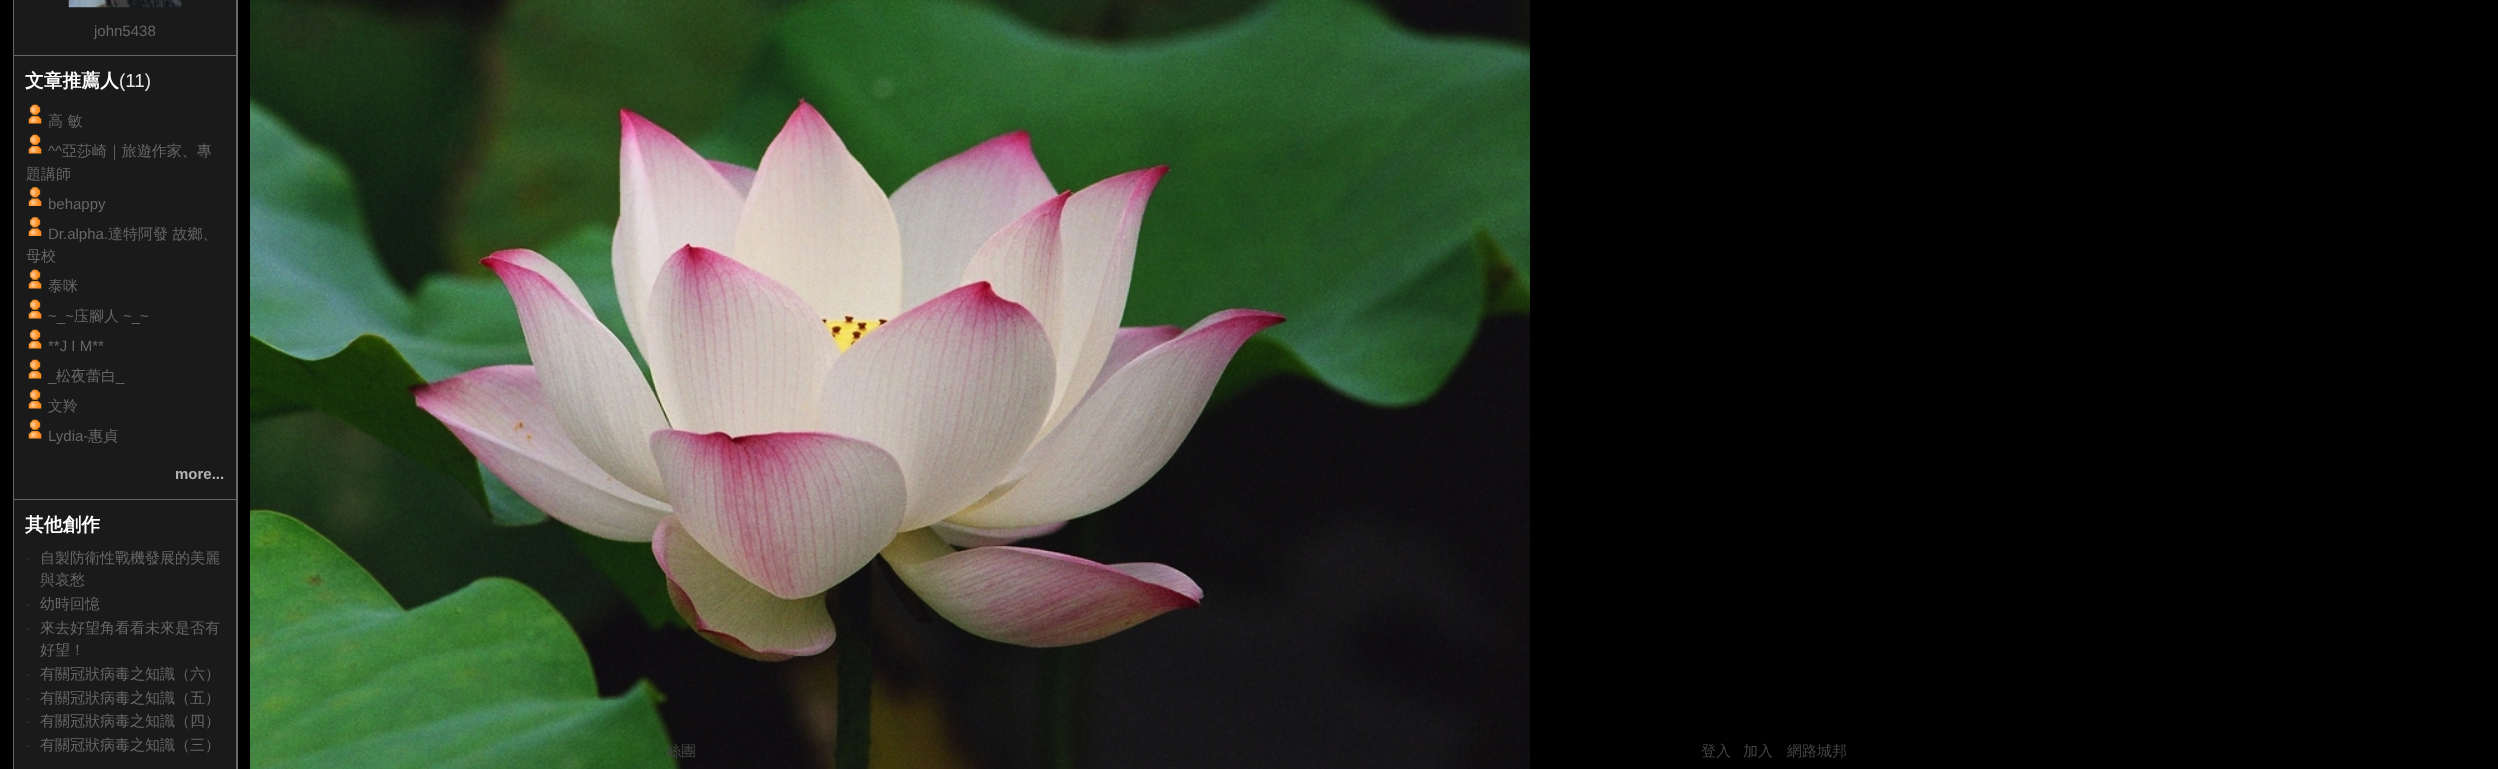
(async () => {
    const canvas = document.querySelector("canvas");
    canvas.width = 2498;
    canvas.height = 769;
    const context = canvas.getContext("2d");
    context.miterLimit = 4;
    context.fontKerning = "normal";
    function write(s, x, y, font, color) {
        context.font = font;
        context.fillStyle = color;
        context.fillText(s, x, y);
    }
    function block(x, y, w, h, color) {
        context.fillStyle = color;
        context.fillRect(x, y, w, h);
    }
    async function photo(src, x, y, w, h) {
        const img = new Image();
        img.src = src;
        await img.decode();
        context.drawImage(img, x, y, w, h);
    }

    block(0, 0, 2498, 769, "rgb(0, 0, 0)");
    block(13, 0, 225, 769, "rgb(102, 102, 102)");
    block(14, 0, 222, 55, "rgb(26, 26, 26)");
    await photo("media/1.png", 68, 0, 114, 8);
    write("john5438", 94, 36, "15px Liberation Sans", "rgb(102, 102, 102)");
    block(14, 56, 222, 443, "rgb(26, 26, 26)");
    write("文章推薦人", 25, 87, "bold 18.75px WenQuanYi Zen Hei", "rgb(255, 255, 255)");
    write("(11)", 119, 87, "18.75px Liberation Sans", "rgb(229, 229, 229)");
    await photo("media/2.png", 28, 104, 14, 20);
    write("高 敏", 48, 126, "500 15px WenQuanYi Zen Hei", "rgb(102, 102, 102)");
    await photo("media/2.png", 28, 134, 14, 20);
    write("^^", 48, 156, "15px Liberation Sans", "rgb(102, 102, 102)");
    write("亞莎崎｜旅遊作家、專", 62, 156, "500 15px WenQuanYi Zen Hei", "rgb(102, 102, 102)");
    write("題講師", 26, 179, "500 15px WenQuanYi Zen Hei", "rgb(102, 102, 102)");
    await photo("media/3.png", 28, 187, 14, 19);
    write("behappy", 48, 209, "15px Liberation Sans", "rgb(102, 102, 102)");
    await photo("media/3.png", 28, 217, 14, 19);
    write("Dr.alpha.", 48, 239, "15px Liberation Sans", "rgb(102, 102, 102)");
    write("達特阿發 故鄉、", 108, 239, "500 15px WenQuanYi Zen Hei", "rgb(102, 102, 102)");
    write("母校", 26, 261, "500 15px WenQuanYi Zen Hei", "rgb(102, 102, 102)");
    await photo("media/2.png", 28, 269, 14, 20);
    write("泰咪", 48, 291, "500 15px WenQuanYi Zen Hei", "rgb(102, 102, 102)");
    await photo("media/2.png", 28, 299, 14, 20);
    write("~_~", 48, 321, "15px Liberation Sans", "rgb(102, 102, 102)");
    write("庒腳人", 74, 321, "500 15px WenQuanYi Zen Hei", "rgb(102, 102, 102)");
    write("~_~", 123, 321, "15px Liberation Sans", "rgb(102, 102, 102)");
    await photo("media/2.png", 28, 329, 14, 20);
    write("**J I M**", 48, 351, "15px Liberation Sans", "rgb(102, 102, 102)");
    await photo("media/2.png", 28, 359, 14, 20);
    write("松夜蕾白", 56, 381, "500 15px WenQuanYi Zen Hei", "rgb(102, 102, 102)");
    write("_", 48, 381, "15px Liberation Sans", "rgb(102, 102, 102)");
    write("_", 116, 381, "15px Liberation Sans", "rgb(102, 102, 102)");
    await photo("media/2.png", 28, 389, 14, 20);
    write("文羚", 48, 411, "500 15px WenQuanYi Zen Hei", "rgb(102, 102, 102)");
    await photo("media/2.png", 28, 419, 14, 20);
    write("Lydia-", 48, 441, "15px Liberation Sans", "rgb(102, 102, 102)");
    write("惠貞", 88, 441, "500 15px WenQuanYi Zen Hei", "rgb(102, 102, 102)");
    write("more...", 175, 479, "bold 15px Liberation Sans", "rgb(179, 179, 179)");
    block(14, 500, 222, 269, "rgb(26, 26, 26)");
    write("其他創作", 25, 531, "bold 18.75px WenQuanYi Zen Hei", "rgb(255, 255, 255)");
    write("‧", 26, 563, "15px Noto Sans", "rgb(51, 51, 51)");
    write("自製防衛性戰機發展的美麗", 40, 563, "500 15px WenQuanYi Zen Hei", "rgb(102, 102, 102)");
    write("與哀愁", 40, 585, "500 15px WenQuanYi Zen Hei", "rgb(102, 102, 102)");
    write("‧", 26, 609, "15px Noto Sans", "rgb(51, 51, 51)");
    write("幼時回憶", 40, 609, "500 15px WenQuanYi Zen Hei", "rgb(102, 102, 102)");
    write("‧", 26, 633, "15px Noto Sans", "rgb(51, 51, 51)");
    write("來去好望角看看未來是否有", 40, 633, "500 15px WenQuanYi Zen Hei", "rgb(102, 102, 102)");
    write("好望！", 40, 655, "500 15px WenQuanYi Zen Hei", "rgb(102, 102, 102)");
    write("‧", 26, 679, "15px Noto Sans", "rgb(51, 51, 51)");
    write("有關冠狀病毒之知識（六）", 40, 679, "500 15px WenQuanYi Zen Hei", "rgb(102, 102, 102)");
    write("‧", 26, 703, "15px Noto Sans", "rgb(51, 51, 51)");
    write("有關冠狀病毒之知識（五）", 40, 703, "500 15px WenQuanYi Zen Hei", "rgb(102, 102, 102)");
    write("‧", 26, 726, "15px Noto Sans", "rgb(51, 51, 51)");
    write("有關冠狀病毒之知識（四）", 40, 726, "500 15px WenQuanYi Zen Hei", "rgb(102, 102, 102)");
    write("‧", 26, 750, "15px Noto Sans", "rgb(51, 51, 51)");
    write("有關冠狀病毒之知識（三）", 40, 750, "500 15px WenQuanYi Zen Hei", "rgb(102, 102, 102)");
    await photo("media/4.png", 250, 0, 1280, 769);
    write("絲團", 666, 756, "500 15px WenQuanYi Zen Hei", "rgb(68, 68, 68)");
    write("登入", 1701, 756, "500 15px WenQuanYi Zen Hei", "rgb(68, 68, 68)");
    write("加入", 1743, 756, "500 15px WenQuanYi Zen Hei", "rgb(68, 68, 68)");
    write("網路城邦", 1787, 756, "500 15px WenQuanYi Zen Hei", "rgb(68, 68, 68)");
})();
